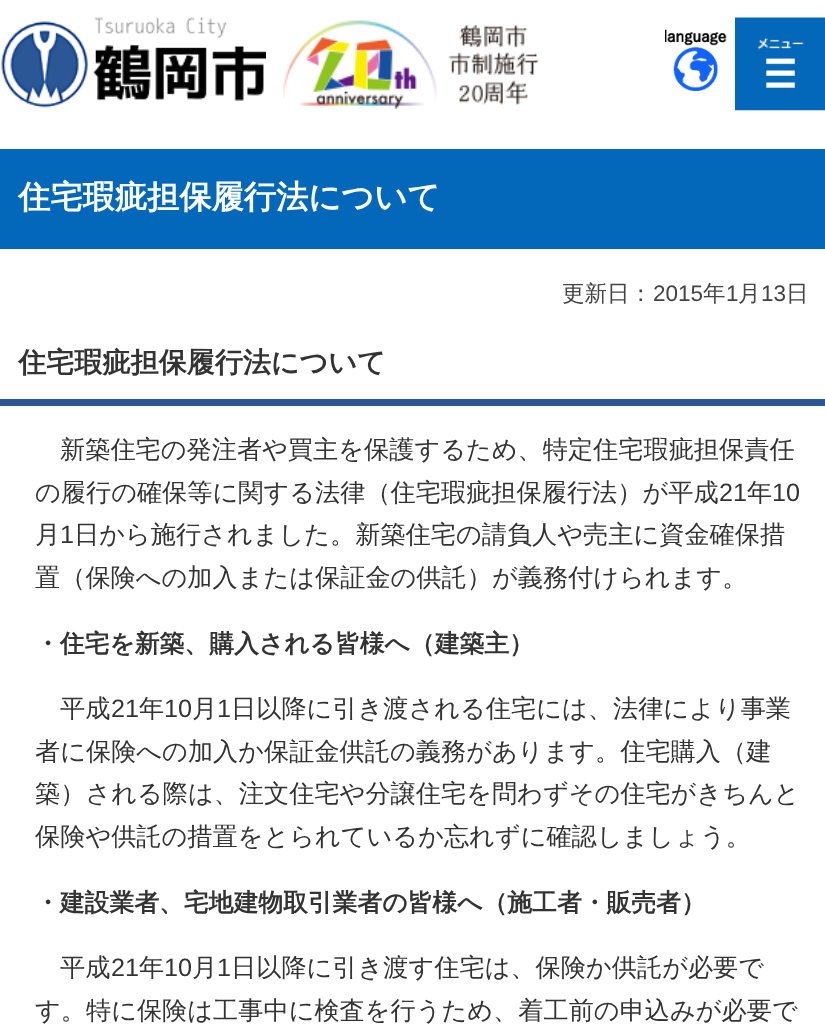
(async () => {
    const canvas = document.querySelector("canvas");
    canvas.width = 825;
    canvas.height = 1033;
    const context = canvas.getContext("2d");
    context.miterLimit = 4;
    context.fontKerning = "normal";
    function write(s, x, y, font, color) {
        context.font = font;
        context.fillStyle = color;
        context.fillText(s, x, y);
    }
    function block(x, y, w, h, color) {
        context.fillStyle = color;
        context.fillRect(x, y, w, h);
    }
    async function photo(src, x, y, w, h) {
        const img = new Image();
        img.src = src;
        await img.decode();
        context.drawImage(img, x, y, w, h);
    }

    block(0, 0, 825, 1033, "rgb(255, 255, 255)");
    await photo("media/1.png", 1, 17, 265, 91);
    await photo("media/2.png", 283, 20, 256, 89);
    await photo("media/3.png", 665, 29, 62, 62);
    await photo("media/4.png", 735, 17, 90, 94);
    block(0, 149, 825, 100, "rgb(4, 104, 186)");
    write("住宅瑕疵担保履行法について", 18, 208, "bold 32.25px WenQuanYi Zen Hei", "rgb(255, 255, 255)");
    write("更新日：", 562, 301, "500 22.5px WenQuanYi Zen Hei", "rgb(68, 68, 68)");
    write("2015", 653, 301, "22.5px Liberation Sans", "rgb(68, 68, 68)");
    write("年", 703, 301, "500 22.5px WenQuanYi Zen Hei", "rgb(68, 68, 68)");
    write("1", 726, 301, "22.5px Liberation Sans", "rgb(68, 68, 68)");
    write("月", 738, 301, "500 22.5px WenQuanYi Zen Hei", "rgb(68, 68, 68)");
    write("13", 761, 301, "22.5px Liberation Sans", "rgb(68, 68, 68)");
    write("日", 786, 301, "500 22.5px WenQuanYi Zen Hei", "rgb(68, 68, 68)");
    block(0, 399, 825, 7, "rgb(43, 87, 151)");
    write("住宅瑕疵担保履行法について", 18, 372, "bold 28.1px WenQuanYi Zen Hei", "rgb(51, 51, 51)");
    write("新築住宅の発注者や買主を保護するため、特定住宅瑕疵担保責任", 60, 458, "500 25.2px WenQuanYi Zen Hei", "rgb(51, 51, 51)");
    write("の履行の確保等に関する法律（住宅瑕疵担保履行法）が平成", 35, 501, "500 25.2px WenQuanYi Zen Hei", "rgb(51, 51, 51)");
    write("21", 719, 501, "25.2px Liberation Sans", "rgb(51, 51, 51)");
    write("年", 747, 501, "500 25.2px WenQuanYi Zen Hei", "rgb(51, 51, 51)");
    write("10", 772, 501, "25.2px Liberation Sans", "rgb(51, 51, 51)");
    write("月", 35, 543, "500 25.2px WenQuanYi Zen Hei", "rgb(51, 51, 51)");
    write("1", 60, 543, "25.2px Liberation Sans", "rgb(51, 51, 51)");
    write("日から施行されました。新築住宅の請負人や売主に資金確保措", 74, 543, "500 25.2px WenQuanYi Zen Hei", "rgb(51, 51, 51)");
    write("置（保険への加入または保証金の供託）が義務付けられます。", 35, 586, "500 25.2px WenQuanYi Zen Hei", "rgb(51, 51, 51)");
    write("・住宅を新築、購入される皆様へ（建築主）", 35, 652, "bold 24.8px WenQuanYi Zen Hei", "rgb(51, 51, 51)");
    write("平成", 60, 717, "500 25.2px WenQuanYi Zen Hei", "rgb(51, 51, 51)");
    write("21", 111, 717, "25.2px Liberation Sans", "rgb(51, 51, 51)");
    write("年", 139, 717, "500 25.2px WenQuanYi Zen Hei", "rgb(51, 51, 51)");
    write("10", 164, 717, "25.2px Liberation Sans", "rgb(51, 51, 51)");
    write("月", 192, 717, "500 25.2px WenQuanYi Zen Hei", "rgb(51, 51, 51)");
    write("1", 217, 717, "25.2px Liberation Sans", "rgb(51, 51, 51)");
    write("日以降に引き渡される住宅には、法律により事業", 231, 717, "500 25.2px WenQuanYi Zen Hei", "rgb(51, 51, 51)");
    write("者に保険への加入か保証金供託の義務があります。住宅購入（建", 35, 760, "500 25.2px WenQuanYi Zen Hei", "rgb(51, 51, 51)");
    write("築）される際は、注文住宅や分譲住宅を問わずその住宅がきちんと", 35, 802, "500 25.2px WenQuanYi Zen Hei", "rgb(51, 51, 51)");
    write("保険や供託の措置をとられているか忘れずに確認しましょう。", 35, 845, "500 25.2px WenQuanYi Zen Hei", "rgb(51, 51, 51)");
    write("・建設業者、宅地建物取引業者の皆様へ（施工者・販売者）", 35, 911, "bold 24.8px WenQuanYi Zen Hei", "rgb(51, 51, 51)");
    write("平成", 60, 976, "500 25.2px WenQuanYi Zen Hei", "rgb(51, 51, 51)");
    write("21", 111, 976, "25.2px Liberation Sans", "rgb(51, 51, 51)");
    write("年", 139, 976, "500 25.2px WenQuanYi Zen Hei", "rgb(51, 51, 51)");
    write("10", 164, 976, "25.2px Liberation Sans", "rgb(51, 51, 51)");
    write("月", 192, 976, "500 25.2px WenQuanYi Zen Hei", "rgb(51, 51, 51)");
    write("1", 217, 976, "25.2px Liberation Sans", "rgb(51, 51, 51)");
    write("日以降に引き渡す住宅は、保険か供託が必要で", 231, 976, "500 25.2px WenQuanYi Zen Hei", "rgb(51, 51, 51)");
    write("す。特に保険は工事中に検査を行うため、着工前の申込みが必要で", 35, 1019, "500 25.2px WenQuanYi Zen Hei", "rgb(51, 51, 51)");
})();
